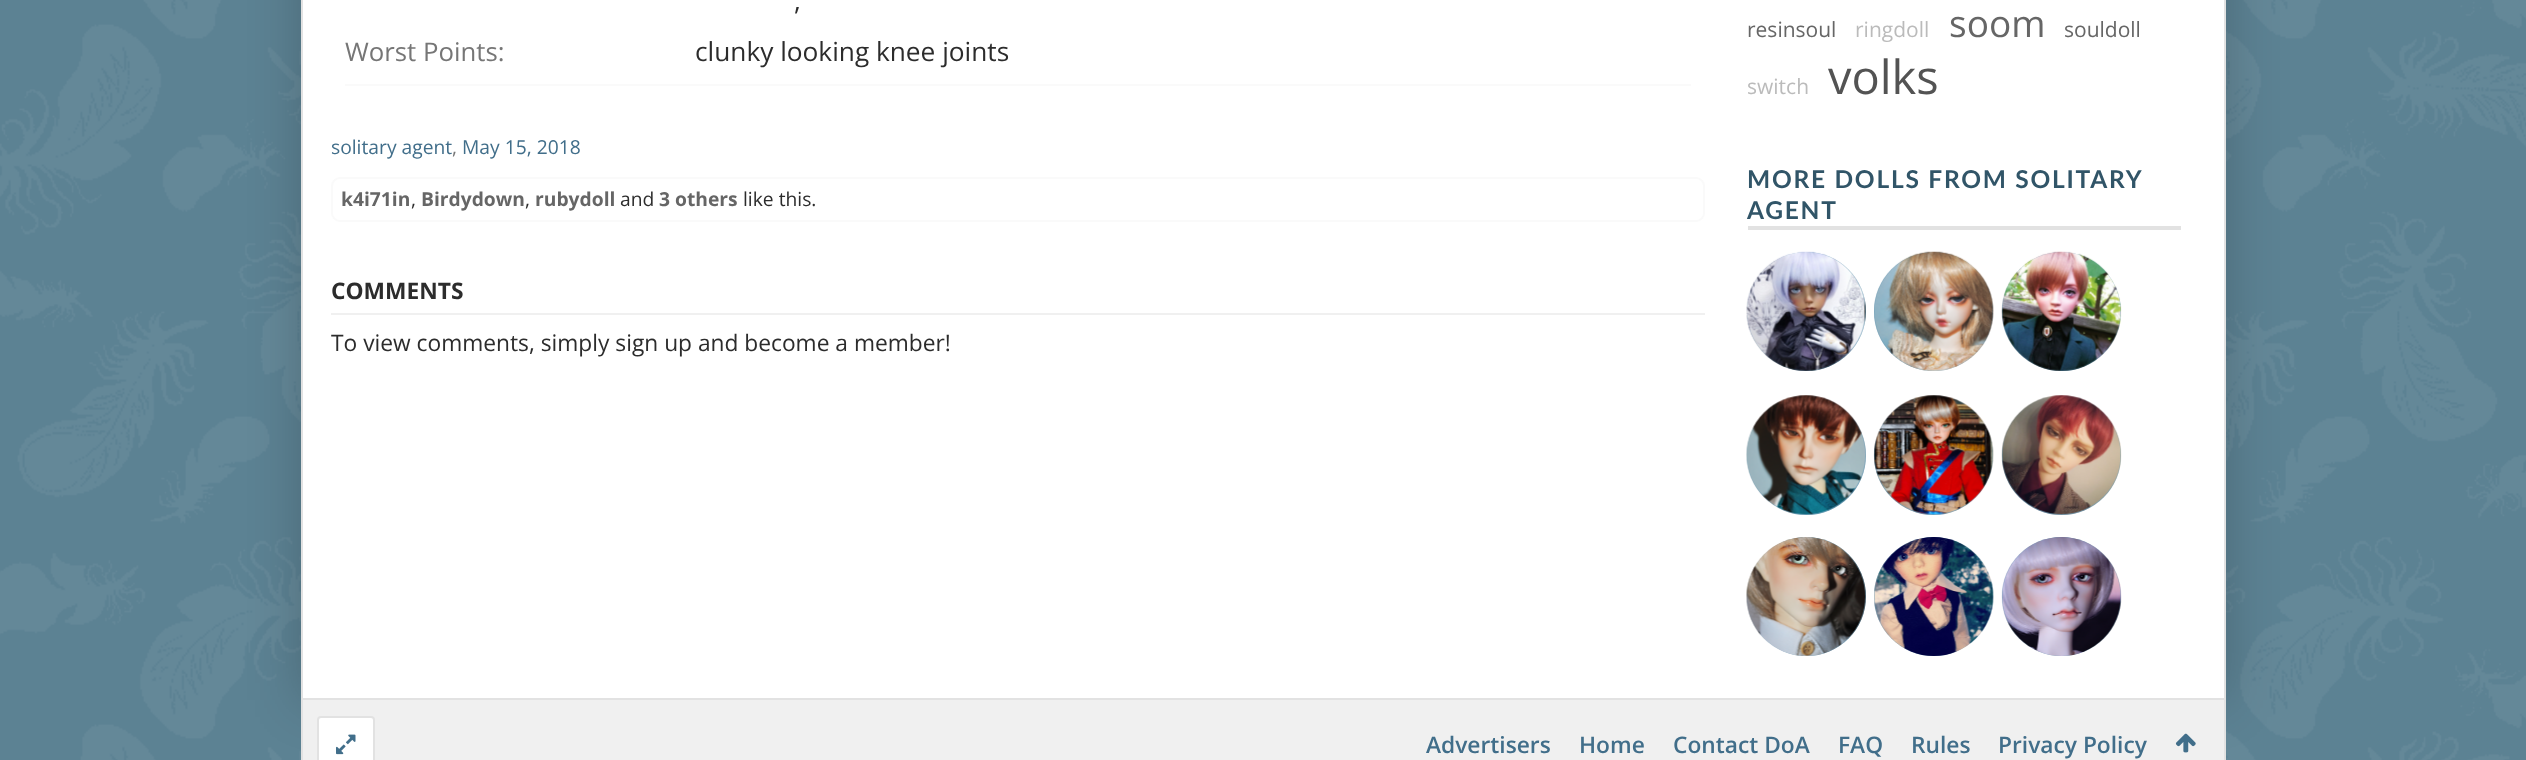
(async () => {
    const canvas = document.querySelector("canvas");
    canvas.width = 2526;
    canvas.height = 760;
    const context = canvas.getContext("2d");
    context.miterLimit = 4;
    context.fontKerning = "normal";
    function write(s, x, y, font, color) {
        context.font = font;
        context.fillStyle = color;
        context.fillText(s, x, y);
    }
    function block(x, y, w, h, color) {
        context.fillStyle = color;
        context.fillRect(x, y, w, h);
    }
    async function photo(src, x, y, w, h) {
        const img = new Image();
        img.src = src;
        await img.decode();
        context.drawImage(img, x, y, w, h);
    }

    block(0, 0, 2526, 760, "rgb(92, 130, 147)");
    await photo("media/1.png", 0, 0, 2526, 760);
    context.fillStyle = "rgba(0, 0, 0, 0.2)";
    context.filter = "blur(26px)";
    context.beginPath();
    context.rect(301, -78, 1925, 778);
    context.fill();
    context.filter = "none";
    block(303, 0, 1921, 698, "rgb(255, 255, 255)");
    block(2224, 0, 2, 700, "rgb(226, 226, 226)");
    block(301, 698, 1925, 2, "rgb(226, 226, 226)");
    block(301, 0, 2, 700, "rgb(226, 226, 226)");
    block(345, 84, 1346, 2, "rgb(250, 250, 250)");
    write(",", 794, 10, "26.25px Open Sans", "rgb(44, 44, 44)");
    write("Worst Points:", 345, 61, "25.75px Open Sans", "rgb(118, 118, 118)");
    write("clunky looking knee joints", 695, 61, "26.25px Open Sans", "rgb(44, 44, 44)");
    write("solitary agent", 331, 154, "19.25px Open Sans", "rgb(65, 110, 138)");
    write(",", 452, 154, "19.25px Open Sans", "rgb(118, 118, 118)");
    write("May 15, 2018", 462, 154, "19.25px Open Sans", "rgb(65, 110, 138)");
    context.beginPath();
    context.roundRect(332, 178, 1372, 43, 8);
    context.strokeStyle = "rgb(250, 250, 250)";
    context.lineWidth = 2;
    context.stroke();
    write("k4i71in", 341, 206, "bold 19.25px Open Sans", "rgb(102, 102, 102)");
    write(",", 411, 206, "19.25px Open Sans", "rgb(44, 44, 44)");
    write("Birdydown", 421, 206, "bold 19.25px Open Sans", "rgb(102, 102, 102)");
    write(",", 525, 206, "19.25px Open Sans", "rgb(44, 44, 44)");
    write("rubydoll", 535, 206, "bold 19.25px Open Sans", "rgb(102, 102, 102)");
    write("and", 620, 206, "19.25px Open Sans", "rgb(44, 44, 44)");
    write("3 others", 659, 206, "bold 19.25px Open Sans", "rgb(102, 102, 102)");
    write("like this.", 743, 206, "19.25px Open Sans", "rgb(44, 44, 44)");
    block(331, 313, 1374, 2, "rgb(240, 240, 240)");
    write("COMMENTS", 331, 299, "bold 22.75px Open Sans", "rgb(44, 44, 44)");
    write("To view comments, simply sign up and become a member!", 331, 351, "22.75px Open Sans", "rgb(44, 44, 44)");
    write("resinsoul", 1747, 37, "21px Open Sans", "rgb(102, 102, 102)");
    write("ringdoll", 1855, 37, "21px Open Sans", "rgb(187, 187, 187)");
    write("soom", 1949, 37, "37px Open Sans", "rgb(102, 102, 102)");
    write("souldoll", 2064, 37, "21px Open Sans", "rgb(102, 102, 102)");
    write("switch", 1747, 94, "21px Open Sans", "rgb(187, 187, 187)");
    write("volks", 1828, 94, "47px Open Sans", "rgb(83, 83, 83)");
    block(1748, 226, 433, 4, "rgb(226, 226, 226)");
    context.letterSpacing = "1.75px";
    write("MORE DOLLS FROM SOLITARY", 1747, 188, "bold 24.5px Lato", "rgb(49, 85, 104)");
    write("AGENT", 1747, 219, "bold 24.5px Lato", "rgb(49, 85, 104)");
    context.fillStyle = "rgb(117, 161, 185)";
    context.beginPath();
    context.arc(1806.5, 311.5, 59.5, 0, Math.PI * 2);
    context.fill();
    await photo("media/2.png", 1746, 251, 120, 120);
    context.beginPath();
    context.arc(1933.5, 311.5, 59.5, 0, Math.PI * 2);
    context.fill();
    await photo("media/3.png", 1874, 251, 120, 120);
    context.beginPath();
    context.arc(2061.5, 311.5, 59.5, 0, Math.PI * 2);
    context.fill();
    await photo("media/4.png", 2001, 251, 121, 120);
    context.beginPath();
    context.arc(1806.5, 455.5, 59.5, 0, Math.PI * 2);
    context.fill();
    await photo("media/5.png", 1746, 395, 120, 120);
    context.beginPath();
    context.arc(1933.5, 455.5, 59.5, 0, Math.PI * 2);
    context.fill();
    await photo("media/6.png", 1873, 395, 121, 120);
    context.beginPath();
    context.arc(2061.5, 455.5, 59.5, 0, Math.PI * 2);
    context.fill();
    await photo("media/7.png", 2001, 395, 121, 120);
    context.beginPath();
    context.arc(1806.5, 596.5, 59.5, 0, Math.PI * 2);
    context.fill();
    await photo("media/8.png", 1746, 537, 120, 119);
    context.beginPath();
    context.arc(1933.5, 596.5, 59.5, 0, Math.PI * 2);
    context.fill();
    await photo("media/9.png", 1874, 537, 120, 119);
    context.beginPath();
    context.arc(2061.5, 596.5, 59.5, 0, Math.PI * 2);
    context.fill();
    await photo("media/10.png", 2001, 537, 121, 119);
    block(303, 700, 1921, 60, "rgb(240, 240, 240)");
    context.fillStyle = "rgb(226, 226, 226)";
    context.beginPath();
    context.moveTo(301, 700);
    context.lineTo(2226, 700);
    context.lineTo(2226, 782);
    context.bezierCurveTo(2226, 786, 2223, 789, 2219, 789);
    context.lineTo(308, 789);
    context.bezierCurveTo(304, 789, 301, 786, 301, 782);
    context.closePath();
    context.moveTo(303, 700);
    context.lineTo(2224, 700);
    context.lineTo(2224, 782);
    context.bezierCurveTo(2224, 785, 2222, 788, 2219, 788);
    context.lineTo(308, 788);
    context.bezierCurveTo(305, 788, 303, 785, 303, 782);
    context.closePath();
    context.fill("evenodd");
    context.fillStyle = "rgb(255, 255, 255)";
    context.beginPath();
    context.roundRect(318, 717, 56, 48, 3);
    context.fill();
    context.strokeStyle = "rgb(226, 226, 226)";
    context.stroke();
    await photo("media/11.png", 336, 734, 20, 21);
    context.letterSpacing = "0px";
    write("Advertisers", 1426, 753, "600 22.75px Open Sans", "rgb(65, 110, 138)");
    write("Home", 1579, 753, "600 22.75px Open Sans", "rgb(65, 110, 138)");
    write("Contact DoA", 1673, 753, "600 22.75px Open Sans", "rgb(65, 110, 138)");
    write("FAQ", 1838, 753, "600 22.75px Open Sans", "rgb(65, 110, 138)");
    write("Rules", 1911, 753, "600 22.75px Open Sans", "rgb(65, 110, 138)");
    write("Privacy Policy", 1998, 753, "600 22.75px Open Sans", "rgb(65, 110, 138)");
    await photo("media/12.png", 2175, 733, 21, 20);
})();
